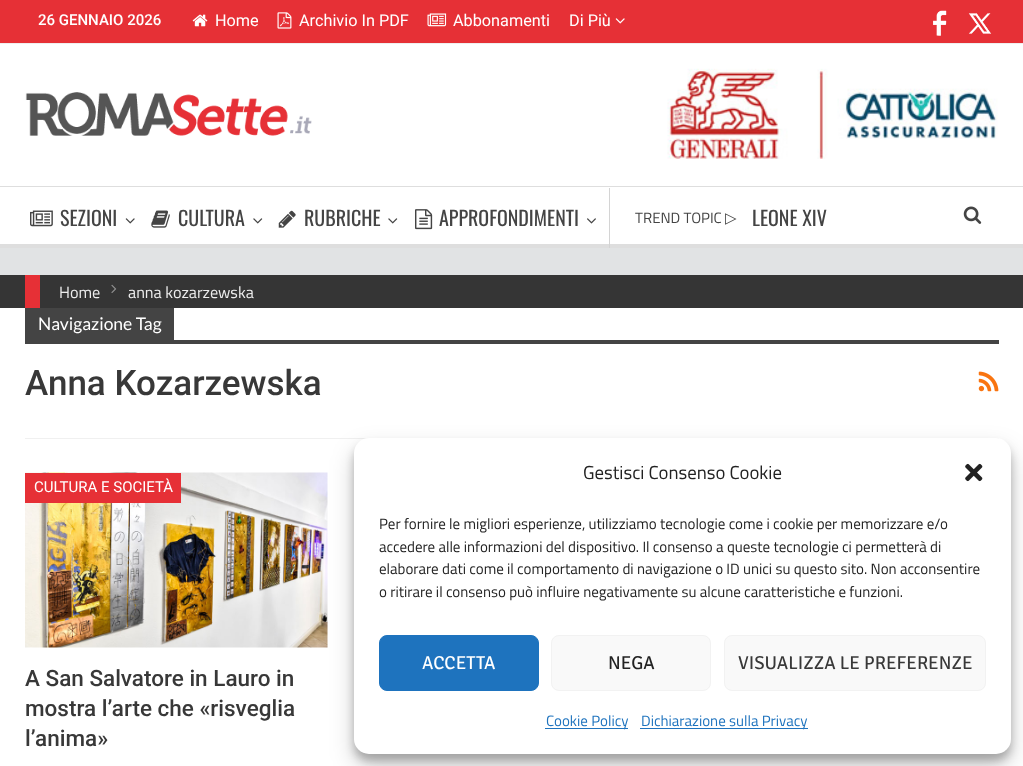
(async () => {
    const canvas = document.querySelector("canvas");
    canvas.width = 1023;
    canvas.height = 766;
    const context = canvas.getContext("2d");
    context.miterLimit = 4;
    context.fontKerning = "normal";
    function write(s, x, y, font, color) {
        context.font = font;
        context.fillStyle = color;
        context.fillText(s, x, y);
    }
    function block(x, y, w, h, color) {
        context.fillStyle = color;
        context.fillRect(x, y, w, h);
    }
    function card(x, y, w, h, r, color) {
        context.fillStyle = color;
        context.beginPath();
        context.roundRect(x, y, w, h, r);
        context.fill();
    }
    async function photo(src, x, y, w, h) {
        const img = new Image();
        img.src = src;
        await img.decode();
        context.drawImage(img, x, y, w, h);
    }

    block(0, 0, 1023, 766, "rgb(225, 227, 228)");
    block(0, 44, 1023, 200, "rgb(255, 255, 255)");
    block(0, 0, 1023, 43, "rgb(230, 48, 54)");
    block(0, 43, 1023, 1, "rgb(239, 239, 239)");
    write("26 GENNAIO 2026", 38, 25, "500 15px Roboto", "rgb(255, 255, 255)");
    await photo("media/1.png", 192, 14, 16, 13);
    write("Home", 215, 26, "16.25px Roboto", "rgb(255, 255, 255)");
    await photo("media/2.png", 277, 12, 15, 17);
    write("Archivio In PDF", 299, 26, "16.25px Roboto", "rgb(255, 255, 255)");
    await photo("media/3.png", 427, 13, 20, 14);
    write("Abbonamenti", 453, 26, "16.25px Roboto", "rgb(255, 255, 255)");
    write("Di Più", 569, 26, "16.25px Roboto", "rgb(255, 255, 255)");
    await photo("media/4.png", 615, 18, 10, 6);
    await photo("media/5.png", 933, 10, 14, 26);
    await photo("media/6.png", 968, 13, 24, 21);
    await photo("media/7.png", 25, 92, 287, 44);
    await photo("media/8.png", 667, 68, 331, 91);
    block(0, 186, 1023, 1, "rgb(222, 222, 222)");
    block(0, 244, 1023, 4, "rgb(222, 222, 222)");
    await photo("media/9.png", 30, 210, 23, 17);
    write("SEZIONI", 60, 226, "20px Oswald", "rgb(68, 68, 68)");
    await photo("media/10.png", 125, 218, 10, 6);
    await photo("media/11.png", 151, 210, 19, 18);
    write("CULTURA", 178, 226, "20px Oswald", "rgb(68, 68, 68)");
    await photo("media/12.png", 253, 218, 10, 6);
    await photo("media/13.png", 278, 210, 18, 18);
    write("RUBRICHE", 304, 226, "20px Oswald", "rgb(68, 68, 68)");
    await photo("media/12.png", 388, 218, 10, 6);
    await photo("media/14.png", 415, 209, 18, 21);
    write("APPROFONDIMENTI", 439, 226, "20px Oswald", "rgb(68, 68, 68)");
    await photo("media/15.png", 587, 218, 9, 6);
    block(609, 188, 1, 60, "rgb(212, 212, 212)");
    write("TREND TOPIC", 635, 223, "15px Titillium Web", "rgb(68, 68, 68)");
    write("▷", 725, 223, "15px DejaVu Sans", "rgb(68, 68, 68)");
    write("LEONE XIV", 752, 226, "20px Oswald", "rgb(68, 68, 68)");
    await photo("media/16.png", 963, 206, 19, 18);
    block(0, 275, 1023, 33, "rgb(53, 53, 53)");
    block(25, 275, 15, 33, "rgb(230, 48, 54)");
    write("Home", 59, 298, "16.25px Titillium Web", "rgb(238, 238, 238)");
    await photo("media/17.png", 111, 284, 6, 9);
    write("anna kozarzewska", 128, 298, "16.25px Titillium Web", "rgb(238, 238, 238)");
    block(0, 308, 1023, 458, "rgb(255, 255, 255)");
    block(25, 438, 974, 1, "rgb(240, 240, 240)");
    block(25, 308, 149, 32, "rgb(68, 68, 68)");
    write("Navigazione Tag", 38, 330, "17.5px Lato", "rgb(255, 255, 255)");
    block(25, 340, 974, 4, "rgb(68, 68, 68)");
    write("Anna Kozarzewska", 25, 395, "500 35px Roboto", "rgb(56, 56, 56)");
    await photo("media/18.png", 978, 371, 21, 21);
    await photo("media/19.png", 25, 472, 303, 176);
    block(25, 473, 156, 30, "rgb(230, 48, 54)");
    write("CULTURA E SOCIETÀ", 34, 492, "15px Roboto", "rgb(255, 255, 255)");
    write("A San Salvatore in Lauro in", 25, 686, "500 22.5px Roboto", "rgb(56, 56, 56)");
    write("mostra l’arte che «risveglia", 25, 716, "500 22.5px Roboto", "rgb(56, 56, 56)");
    write("l’anima»", 25, 746, "500 22.5px Roboto", "rgb(56, 56, 56)");
    context.fillStyle = "rgba(0, 0, 0, 0.23)";
    context.filter = "blur(4px)";
    context.beginPath();
    context.roundRect(354, 445, 657, 316, 15);
    context.fill();
    context.filter = "none";
    context.fillStyle = "rgba(0, 0, 0, 0.19)";
    context.filter = "blur(12.5px)";
    context.beginPath();
    context.roundRect(354, 450, 657, 316, 15);
    context.fill();
    context.filter = "none";
    card(354, 438, 657, 316, 15, "rgb(255, 255, 255)");
    write("Gestisci Consenso Cookie", 583, 479, "18.75px Titillium Web", "rgb(34, 34, 34)");
    await photo("media/20.png", 965, 463, 18, 19);
    write("Per fornire le migliori esperienze, utilizziamo tecnologie come i cookie per memorizzare e/o", 379, 529, "15px Titillium Web", "rgb(34, 34, 34)");
    write("accedere alle informazioni del dispositivo. Il consenso a queste tecnologie ci permetterà di", 379, 552, "15px Titillium Web", "rgb(34, 34, 34)");
    write("elaborare dati come il comportamento di navigazione o ID unici su questo sito. Non acconsentire", 379, 574, "15px Titillium Web", "rgb(34, 34, 34)");
    write("o ritirare il consenso può influire negativamente su alcune caratteristiche e funzioni.", 379, 597, "15px Titillium Web", "rgb(34, 34, 34)");
    context.fillStyle = "rgb(30, 115, 190)";
    context.beginPath();
    context.roundRect(379.5, 635.5, 159, 55, 7.5);
    context.fill();
    context.strokeStyle = "rgb(30, 115, 190)";
    context.stroke();
    write("ACCETTA", 422, 669, "300 18.75px Signika Negative", "rgb(255, 255, 255)");
    context.fillStyle = "rgb(249, 249, 249)";
    context.beginPath();
    context.roundRect(551.5, 635.5, 159, 55, 7.5);
    context.fill();
    context.strokeStyle = "rgb(242, 242, 242)";
    context.stroke();
    write("NEGA", 608, 669, "300 18.75px Signika Negative", "rgb(34, 34, 34)");
    context.fillStyle = "rgb(249, 249, 249)";
    context.beginPath();
    context.roundRect(724.5, 635.5, 261, 55, 7.5);
    context.fill();
    context.stroke();
    write("VISUALIZZA LE PREFERENZE", 738, 669, "300 18.75px Signika Negative", "rgb(56, 56, 56)");
    block(545, 728, 83, 1, "rgb(30, 115, 190)");
    write("Cookie Policy", 546, 726, "15px Titillium Web", "rgb(30, 115, 190)");
    block(640, 728, 168, 1, "rgb(30, 115, 190)");
    write("Dichiarazione sulla Privacy", 641, 726, "15px Titillium Web", "rgb(30, 115, 190)");
})();
